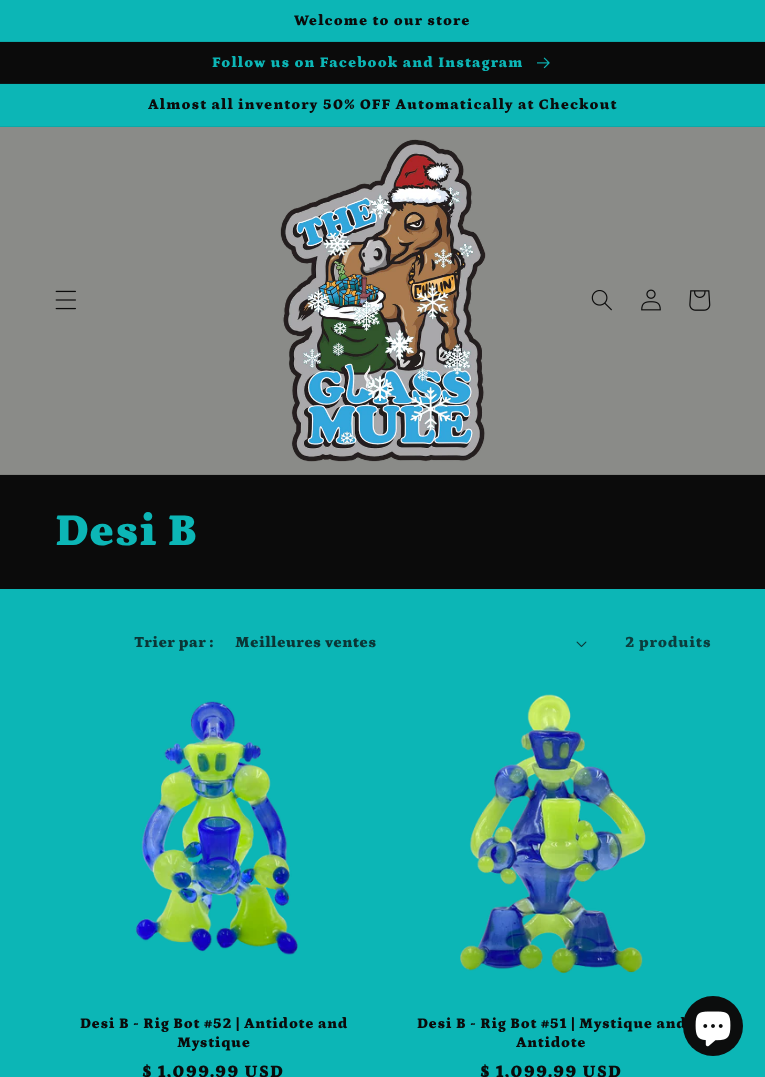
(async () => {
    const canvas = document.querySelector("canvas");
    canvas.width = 765;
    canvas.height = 1077;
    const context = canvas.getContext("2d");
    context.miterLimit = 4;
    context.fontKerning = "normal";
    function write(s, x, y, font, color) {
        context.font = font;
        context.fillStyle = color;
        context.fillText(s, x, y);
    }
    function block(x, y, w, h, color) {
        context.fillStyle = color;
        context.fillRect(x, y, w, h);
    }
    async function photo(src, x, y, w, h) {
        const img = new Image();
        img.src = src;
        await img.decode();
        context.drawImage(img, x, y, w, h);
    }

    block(0, 0, 765, 1077, "rgb(12, 182, 182)");
    block(0, 41, 765, 1, "rgb(12, 168, 168)");
    context.letterSpacing = "1.1px";
    write("Welcome to our store", 294, 25, "900 14.95px Petrona", "rgb(11, 11, 11)");
    block(0, 42, 765, 41, "rgb(11, 11, 11)");
    block(0, 83, 765, 1, "rgb(11, 25, 25)");
    write("Follow us on Facebook and Instagram", 212, 67, "900 14.95px Petrona", "rgb(12, 182, 182)");
    await photo("media/1.png", 537, 57, 13, 12);
    block(0, 126, 765, 1, "rgb(12, 168, 168)");
    write("Almost all inventory 50% OFF Automatically at Checkout", 148, 109, "900 14.95px Petrona", "rgb(11, 11, 11)");
    block(0, 127, 765, 347, "rgb(138, 139, 136)");
    block(0, 474, 765, 1, "rgb(128, 129, 126)");
    await photo("media/2.png", 55, 290, 21, 20);
    await photo("media/3.png", 280, 139, 206, 323);
    await photo("media/4.png", 591, 290, 21, 21);
    await photo("media/5.png", 641, 289, 20, 22);
    await photo("media/6.png", 689, 290, 22, 21);
    block(0, 475, 765, 114, "rgb(11, 11, 11)");
    context.letterSpacing = "0.7px";
    write("Desi B", 55, 545, "900 46px Petrona", "rgb(12, 182, 182)");
    context.letterSpacing = "0.4px";
    write("Trier par :", 134, 647, "900 15.5px Petrona", "rgb(11, 54, 54)");
    write("Meilleures ventes", 235, 647, "900 15.5px Petrona", "rgb(11, 54, 54)");
    await photo("media/7.png", 576, 641, 11, 6);
    context.letterSpacing = "0.75px";
    write("2 produits", 625, 647, "900 15.5px Petrona", "rgb(11, 62, 62)");
    await photo("media/8.png", 135, 701, 163, 254);
    context.letterSpacing = "0.7px";
    write("Desi B - Rig Bot #52 | Antidote and", 80, 1028, "900 14.95px Petrona", "rgb(11, 11, 11)");
    write("Mystique", 177, 1047, "900 14.95px Petrona", "rgb(11, 11, 11)");
    context.letterSpacing = "1.1px";
    write("$ 1,099.99 USD", 142, 1077, "900 17.5px Petrona", "rgb(11, 11, 11)");
    await photo("media/9.png", 460, 694, 186, 280);
    context.letterSpacing = "0.7px";
    write("Desi B - Rig Bot #51 | Mystique and", 417, 1028, "900 14.95px Petrona", "rgb(11, 11, 11)");
    write("Antidote", 516, 1047, "900 14.95px Petrona", "rgb(11, 11, 11)");
    context.letterSpacing = "1.1px";
    write("$ 1,099.99 USD", 480, 1077, "900 17.5px Petrona", "rgb(11, 11, 11)");
    context.fillStyle = "rgb(12, 13, 13)";
    context.beginPath();
    context.arc(713, 1026, 30, 0, Math.PI * 2);
    context.fill();
    await photo("media/10.png", 695, 1011, 36, 36);
})();
